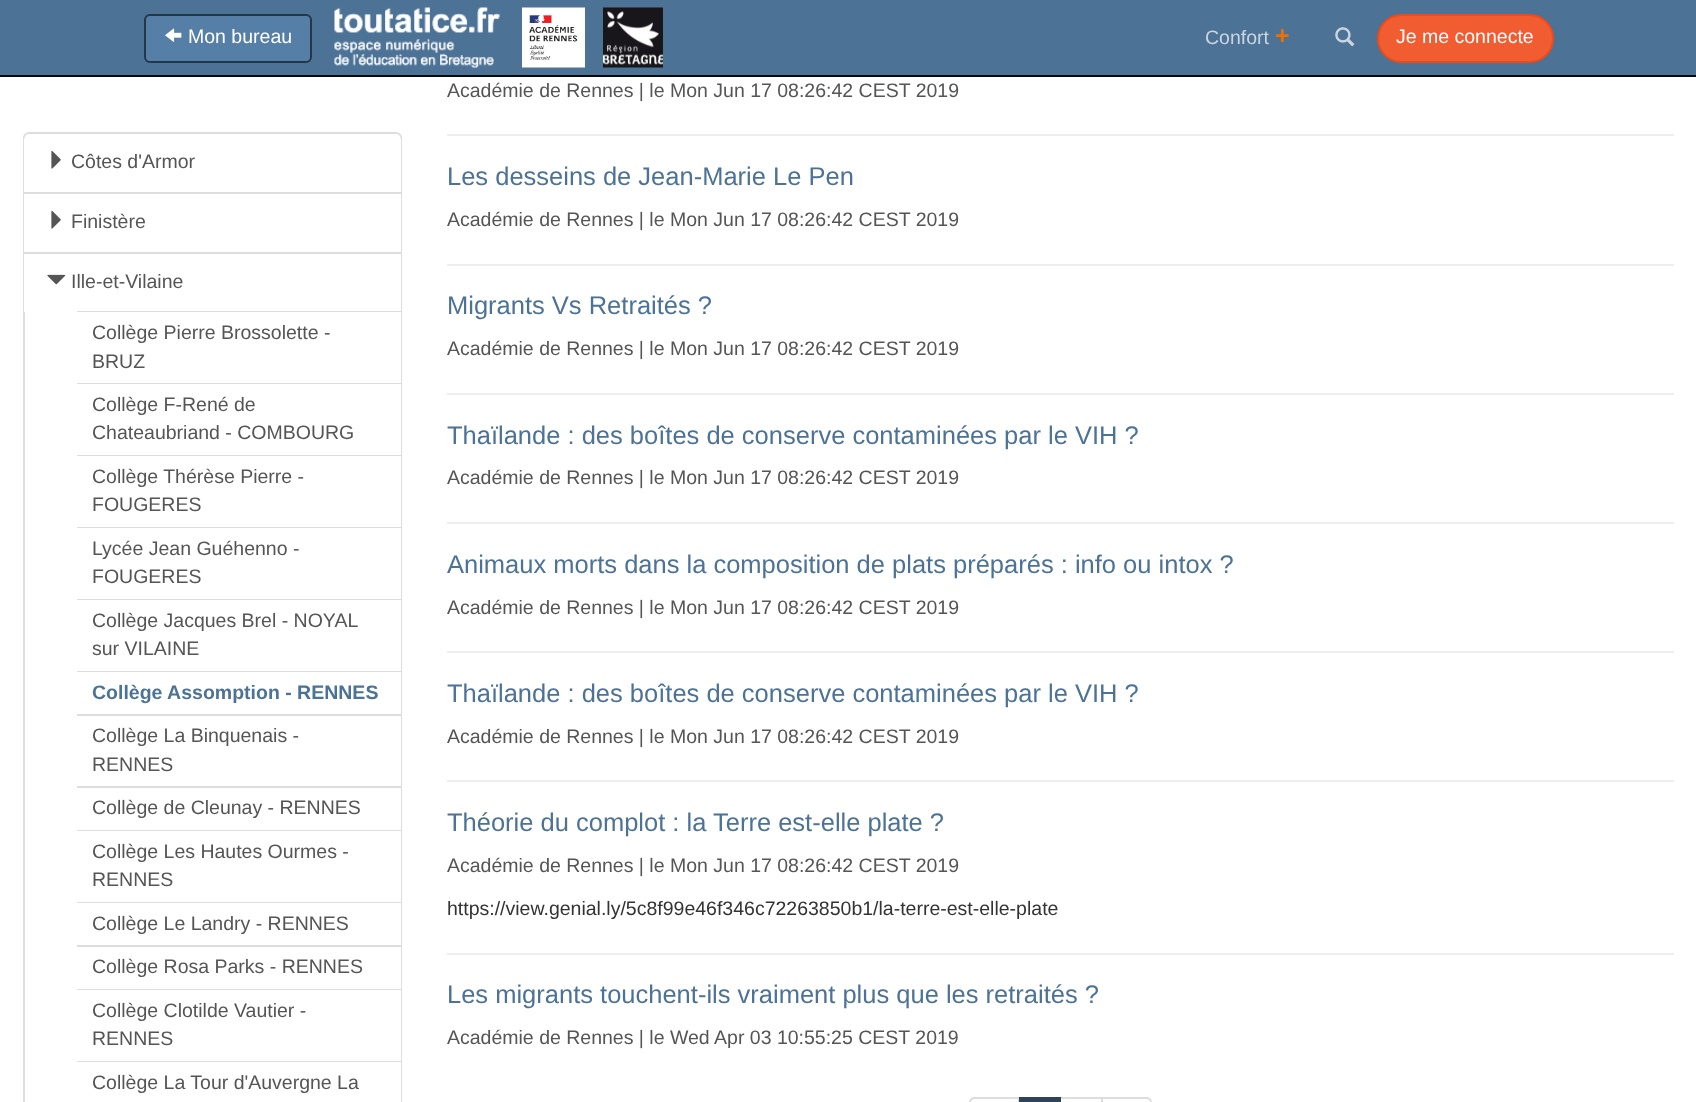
(async () => {
    const canvas = document.querySelector("canvas");
    canvas.width = 1696;
    canvas.height = 1102;
    const context = canvas.getContext("2d");
    context.miterLimit = 4;
    context.fontKerning = "normal";
    function write(s, x, y, font, color) {
        context.font = font;
        context.fillStyle = color;
        context.fillText(s, x, y);
    }
    function block(x, y, w, h, color) {
        context.fillStyle = color;
        context.fillRect(x, y, w, h);
    }
    async function photo(src, x, y, w, h) {
        const img = new Image();
        img.src = src;
        await img.decode();
        context.drawImage(img, x, y, w, h);
    }

    block(0, 0, 1696, 1102, "rgb(255, 255, 255)");
    block(0, 0, 1696, 75, "rgb(76, 114, 150)");
    block(0, 75, 1696, 2, "rgb(8, 8, 8)");
    context.fillStyle = "rgb(85, 127, 167)";
    context.beginPath();
    context.roundRect(145, 15, 166, 47, 5);
    context.fill();
    context.strokeStyle = "rgb(37, 54, 68)";
    context.lineWidth = 2;
    context.stroke();
    await photo("media/1.png", 165, 28, 17, 14);
    write("Mon bureau", 188, 43, "19.5px Liberation Sans", "rgb(255, 255, 255)");
    await photo("media/2.png", 334, 7, 166, 61);
    await photo("media/3.png", 522, 7, 63, 61);
    await photo("media/4.png", 603, 7, 60, 61);
    write("Confort", 1205, 44, "19.5px Liberation Sans", "rgb(201, 213, 224)");
    write("+", 1275, 44, "bold 25px Liberation Sans", "rgb(241, 110, 0)");
    await photo("media/5.png", 1335, 27, 20, 20);
    context.fillStyle = "rgb(241, 93, 49)";
    context.beginPath();
    context.roundRect(1378, 15, 175, 47, 23.5);
    context.fill();
    context.strokeStyle = "rgb(239, 74, 25)";
    context.stroke();
    write("Je me connecte", 1396, 43, "19.5px Liberation Sans", "rgb(255, 255, 255)");
    context.beginPath();
    context.roundRect(24, 133, 377, 60, [5, 5, 0, 0]);
    context.strokeStyle = "rgb(221, 221, 221)";
    context.stroke();
    context.beginPath();
    context.roundRect(24, 134, 377, 58, [6, 6, 0, 0]);
    context.fill();
    await photo("media/6.png", 51, 150, 10, 19);
    write("Côtes d'Armor", 71, 168, "19.5px Liberation Sans", "rgb(85, 85, 85)");
    context.strokeRect(24, 193, 377, 60);
    block(24, 194, 377, 58, "rgb(255, 255, 255)");
    await photo("media/6.png", 51, 210, 10, 19);
    write("Finistère", 71, 228, "19.5px Liberation Sans", "rgb(85, 85, 85)");
    context.strokeRect(24, 253, 377, 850);
    block(24, 254, 377, 58, "rgb(255, 255, 255)");
    await photo("media/7.png", 47, 274, 19, 11);
    write("Ille-et-Vilaine", 71, 288, "19.5px Liberation Sans", "rgb(85, 85, 85)");
    block(77, 311, 324, 1, "rgb(221, 221, 221)");
    block(400, 312, 1, 71, "rgb(255, 255, 255)");
    write("Collège Pierre Brossolette -", 92, 339, "19.5px Liberation Sans", "rgb(85, 85, 85)");
    write("BRUZ", 92, 368, "19.5px Liberation Sans", "rgb(85, 85, 85)");
    block(77, 383, 324, 1, "rgb(221, 221, 221)");
    block(400, 384, 1, 71, "rgb(255, 255, 255)");
    write("Collège F-René de", 92, 411, "19.5px Liberation Sans", "rgb(85, 85, 85)");
    write("Chateaubriand - COMBOURG", 92, 439, "19.5px Liberation Sans", "rgb(85, 85, 85)");
    block(77, 455, 324, 1, "rgb(221, 221, 221)");
    block(400, 456, 1, 71, "rgb(255, 255, 255)");
    write("Collège Thérèse Pierre -", 92, 483, "19.5px Liberation Sans", "rgb(85, 85, 85)");
    write("FOUGERES", 92, 511, "19.5px Liberation Sans", "rgb(85, 85, 85)");
    block(77, 527, 324, 1, "rgb(221, 221, 221)");
    block(400, 528, 1, 71, "rgb(255, 255, 255)");
    write("Lycée Jean Guéhenno -", 92, 555, "19.5px Liberation Sans", "rgb(85, 85, 85)");
    write("FOUGERES", 92, 583, "19.5px Liberation Sans", "rgb(85, 85, 85)");
    block(77, 599, 324, 1, "rgb(221, 221, 221)");
    block(400, 600, 1, 71, "rgb(255, 255, 255)");
    write("Collège Jacques Brel - NOYAL", 92, 627, "19.5px Liberation Sans", "rgb(85, 85, 85)");
    write("sur VILAINE", 92, 655, "19.5px Liberation Sans", "rgb(85, 85, 85)");
    block(77, 671, 324, 1, "rgb(221, 221, 221)");
    block(400, 672, 1, 42, "rgb(255, 255, 255)");
    write("Collège Assomption - RENNES", 92, 699, "bold 19.5px Liberation Sans", "rgb(76, 114, 150)");
    block(400, 716, 1, 70, "rgb(255, 255, 255)");
    block(77, 714, 324, 2, "rgb(221, 221, 221)");
    write("Collège La Binquenais -", 92, 742, "19.5px Liberation Sans", "rgb(85, 85, 85)");
    write("RENNES", 92, 771, "19.5px Liberation Sans", "rgb(85, 85, 85)");
    block(400, 788, 1, 42, "rgb(255, 255, 255)");
    block(77, 786, 324, 2, "rgb(221, 221, 221)");
    write("Collège de Cleunay - RENNES", 92, 814, "19.5px Liberation Sans", "rgb(85, 85, 85)");
    block(77, 830, 324, 1, "rgb(221, 221, 221)");
    block(400, 831, 1, 71, "rgb(255, 255, 255)");
    write("Collège Les Hautes Ourmes -", 92, 858, "19.5px Liberation Sans", "rgb(85, 85, 85)");
    write("RENNES", 92, 886, "19.5px Liberation Sans", "rgb(85, 85, 85)");
    block(77, 902, 324, 1, "rgb(221, 221, 221)");
    block(400, 903, 1, 42, "rgb(255, 255, 255)");
    write("Collège Le Landry - RENNES", 92, 930, "19.5px Liberation Sans", "rgb(85, 85, 85)");
    block(400, 947, 1, 42, "rgb(255, 255, 255)");
    block(77, 945, 324, 2, "rgb(221, 221, 221)");
    write("Collège Rosa Parks - RENNES", 92, 973, "19.5px Liberation Sans", "rgb(85, 85, 85)");
    block(77, 989, 324, 1, "rgb(221, 221, 221)");
    block(400, 990, 1, 71, "rgb(255, 255, 255)");
    write("Collège Clotilde Vautier -", 92, 1017, "19.5px Liberation Sans", "rgb(85, 85, 85)");
    write("RENNES", 92, 1045, "19.5px Liberation Sans", "rgb(85, 85, 85)");
    block(77, 1061, 324, 1, "rgb(221, 221, 221)");
    block(400, 1062, 1, 40, "rgb(255, 255, 255)");
    write("Collège La Tour d'Auvergne La", 92, 1089, "19.5px Liberation Sans", "rgb(85, 85, 85)");
    write("Académie de Rennes | le Mon Jun 17 08:26:42 CEST 2019", 447, 97, "19.5px Liberation Sans", "rgb(85, 85, 85)");
    block(447, 134, 1227, 2, "rgb(238, 238, 238)");
    write("Les desseins de Jean-Marie Le Pen", 447, 185, "25.5px Liberation Sans", "rgb(76, 114, 150)");
    write("Académie de Rennes | le Mon Jun 17 08:26:42 CEST 2019", 447, 226, "19.5px Liberation Sans", "rgb(85, 85, 85)");
    block(447, 264, 1227, 2, "rgb(238, 238, 238)");
    write("Migrants Vs Retraités ?", 447, 314, "25.5px Liberation Sans", "rgb(76, 114, 150)");
    write("Académie de Rennes | le Mon Jun 17 08:26:42 CEST 2019", 447, 355, "19.5px Liberation Sans", "rgb(85, 85, 85)");
    block(447, 393, 1227, 2, "rgb(238, 238, 238)");
    write("Thaïlande : des boîtes de conserve contaminées par le VIH ?", 447, 444, "25.5px Liberation Sans", "rgb(76, 114, 150)");
    write("Académie de Rennes | le Mon Jun 17 08:26:42 CEST 2019", 447, 484, "19.5px Liberation Sans", "rgb(85, 85, 85)");
    block(447, 522, 1227, 2, "rgb(238, 238, 238)");
    write("Animaux morts dans la composition de plats préparés : info ou intox ?", 447, 573, "25.5px Liberation Sans", "rgb(76, 114, 150)");
    write("Académie de Rennes | le Mon Jun 17 08:26:42 CEST 2019", 447, 614, "19.5px Liberation Sans", "rgb(85, 85, 85)");
    block(447, 651, 1227, 2, "rgb(238, 238, 238)");
    write("Thaïlande : des boîtes de conserve contaminées par le VIH ?", 447, 702, "25.5px Liberation Sans", "rgb(76, 114, 150)");
    write("Académie de Rennes | le Mon Jun 17 08:26:42 CEST 2019", 447, 743, "19.5px Liberation Sans", "rgb(85, 85, 85)");
    block(447, 780, 1227, 2, "rgb(238, 238, 238)");
    write("Théorie du complot : la Terre est-elle plate ?", 447, 831, "25.5px Liberation Sans", "rgb(76, 114, 150)");
    write("Académie de Rennes | le Mon Jun 17 08:26:42 CEST 2019", 447, 872, "19.5px Liberation Sans", "rgb(85, 85, 85)");
    write("https://view.genial.ly/5c8f99e46f346c72263850b1/la-terre-est-elle-plate", 447, 915, "19.5px Liberation Sans", "rgb(51, 51, 51)");
    block(447, 953, 1227, 2, "rgb(238, 238, 238)");
    write("Les migrants touchent-ils vraiment plus que les retraités ?", 447, 1003, "25.5px Liberation Sans", "rgb(76, 114, 150)");
    write("Académie de Rennes | le Wed Apr 03 10:55:25 CEST 2019", 447, 1044, "19.5px Liberation Sans", "rgb(85, 85, 85)");
    context.beginPath();
    context.moveTo(974, 1098);
    context.lineTo(1019, 1098);
    context.lineTo(1019, 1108);
    context.lineTo(974, 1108);
    context.bezierCurveTo(972, 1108, 970, 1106, 970, 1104);
    context.lineTo(970, 1102);
    context.bezierCurveTo(970, 1100, 972, 1098, 974, 1098);
    context.closePath();
    context.stroke();
    context.strokeRect(1060, 1098, 42, 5);
    block(1019, 1097, 42, 5, "rgb(46, 67, 85)");
    context.fillStyle = "rgb(255, 255, 255)";
    context.beginPath();
    context.moveTo(1102, 1098);
    context.lineTo(1147, 1098);
    context.bezierCurveTo(1149, 1098, 1151, 1100, 1151, 1102);
    context.lineTo(1151, 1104);
    context.bezierCurveTo(1151, 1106, 1149, 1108, 1147, 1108);
    context.lineTo(1102, 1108);
    context.closePath();
    context.fill();
    context.stroke();
})();
